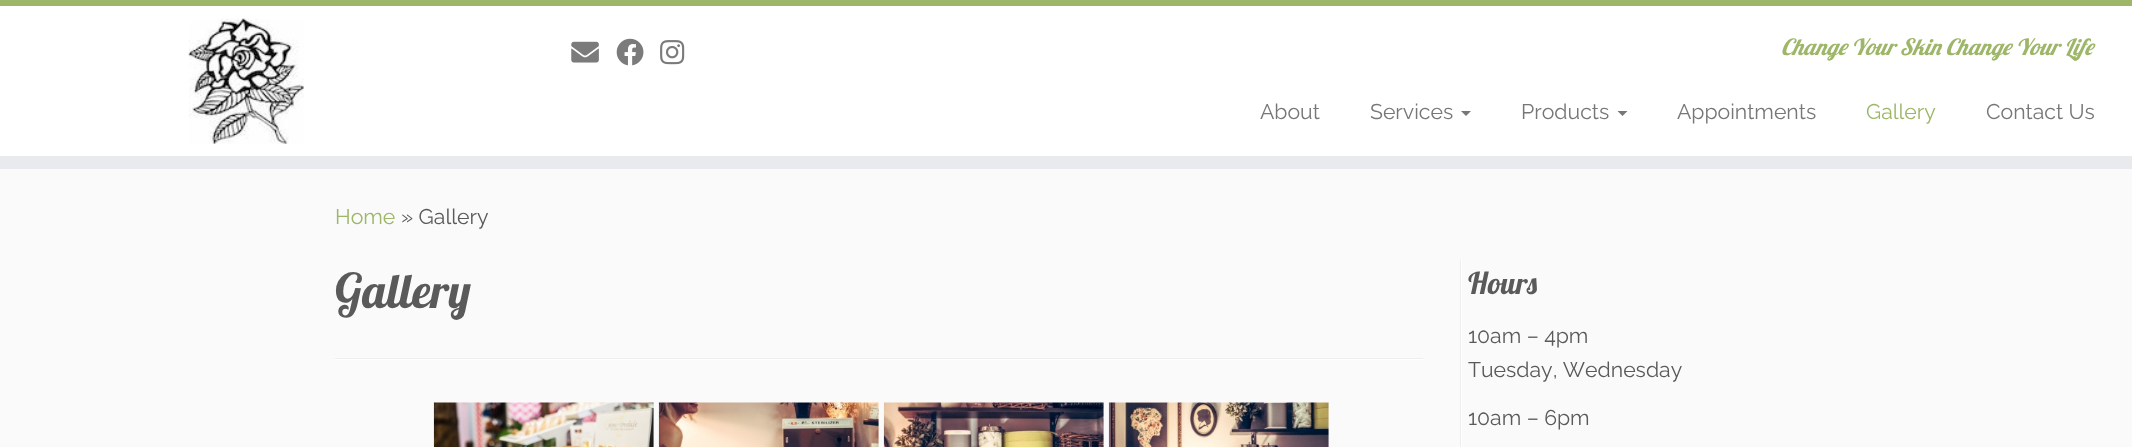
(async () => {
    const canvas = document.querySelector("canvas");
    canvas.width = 2132;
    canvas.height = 447;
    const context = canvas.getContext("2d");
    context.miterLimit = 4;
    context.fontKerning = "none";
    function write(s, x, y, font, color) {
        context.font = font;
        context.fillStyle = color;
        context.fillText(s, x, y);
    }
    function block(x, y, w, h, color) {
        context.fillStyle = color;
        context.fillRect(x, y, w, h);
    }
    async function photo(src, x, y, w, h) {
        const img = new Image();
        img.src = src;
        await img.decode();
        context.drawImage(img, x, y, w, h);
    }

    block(0, 0, 2132, 447, "rgb(250, 250, 250)");
    block(0, 6, 2132, 150, "rgb(255, 255, 255)");
    block(0, 0, 2132, 6, "rgb(157, 182, 104)");
    block(0, 156, 2132, 13, "rgb(233, 234, 238)");
    await photo("media/1.png", 188, 18, 116, 126);
    await photo("media/2.png", 571, 41, 28, 22);
    await photo("media/3.png", 616, 38, 28, 28);
    await photo("media/4.png", 660, 40, 25, 25);
    write("Change Your Skin Change Your Life", 1781, 55, "italic 22.5px Lobster", "rgb(157, 182, 104)");
    write("About", 1260, 119, "100 21.25px Raleway", "rgb(119, 119, 119)");
    write("Services", 1370, 119, "100 21.25px Raleway", "rgb(119, 119, 119)");
    context.beginPath();
    context.moveTo(1461, 111);
    context.lineTo(1471, 111);
    context.lineTo(1466, 116);
    context.closePath();
    context.fill();
    write("Products", 1521, 119, "100 21.25px Raleway", "rgb(119, 119, 119)");
    context.beginPath();
    context.moveTo(1617.5, 111);
    context.lineTo(1627.5, 111);
    context.lineTo(1622.5, 116);
    context.closePath();
    context.fill();
    write("Appointments", 1677, 119, "100 21.25px Raleway", "rgb(119, 119, 119)");
    write("Gallery", 1866, 119, "100 21.25px Raleway", "rgb(157, 182, 104)");
    write("Contact Us", 1986, 119, "100 21.25px Raleway", "rgb(119, 119, 119)");
    write("Home", 335, 224, "100 21.25px Raleway", "rgb(157, 182, 104)");
    write("» Gallery", 401, 224, "100 21.25px Raleway", "rgb(90, 90, 90)");
    write("Gallery", 335, 308, "47.5px Lobster", "rgb(90, 90, 90)");
    block(335, 358, 1088, 1, "rgb(238, 238, 238)");
    block(335, 359, 1088, 1, "rgb(255, 255, 255)");
    await photo("media/5.png", 433, 402, 221, 45);
    await photo("media/6.png", 658, 402, 221, 45);
    await photo("media/7.png", 883, 402, 221, 45);
    await photo("media/8.png", 1108, 402, 221, 45);
    block(1460, 260, 1, 187, "rgb(238, 238, 238)");
    block(1461, 260, 1, 187, "rgb(255, 255, 255)");
    write("Hours", 1468, 294, "30px Lobster", "rgb(90, 90, 90)");
    write("10am – 4pm", 1468, 343, "100 21.25px Raleway", "rgb(90, 90, 90)");
    write("Tuesday, Wednesday", 1468, 377, "100 21.25px Raleway", "rgb(90, 90, 90)");
    write("10am – 6pm", 1468, 425, "100 21.25px Raleway", "rgb(90, 90, 90)");
})();
